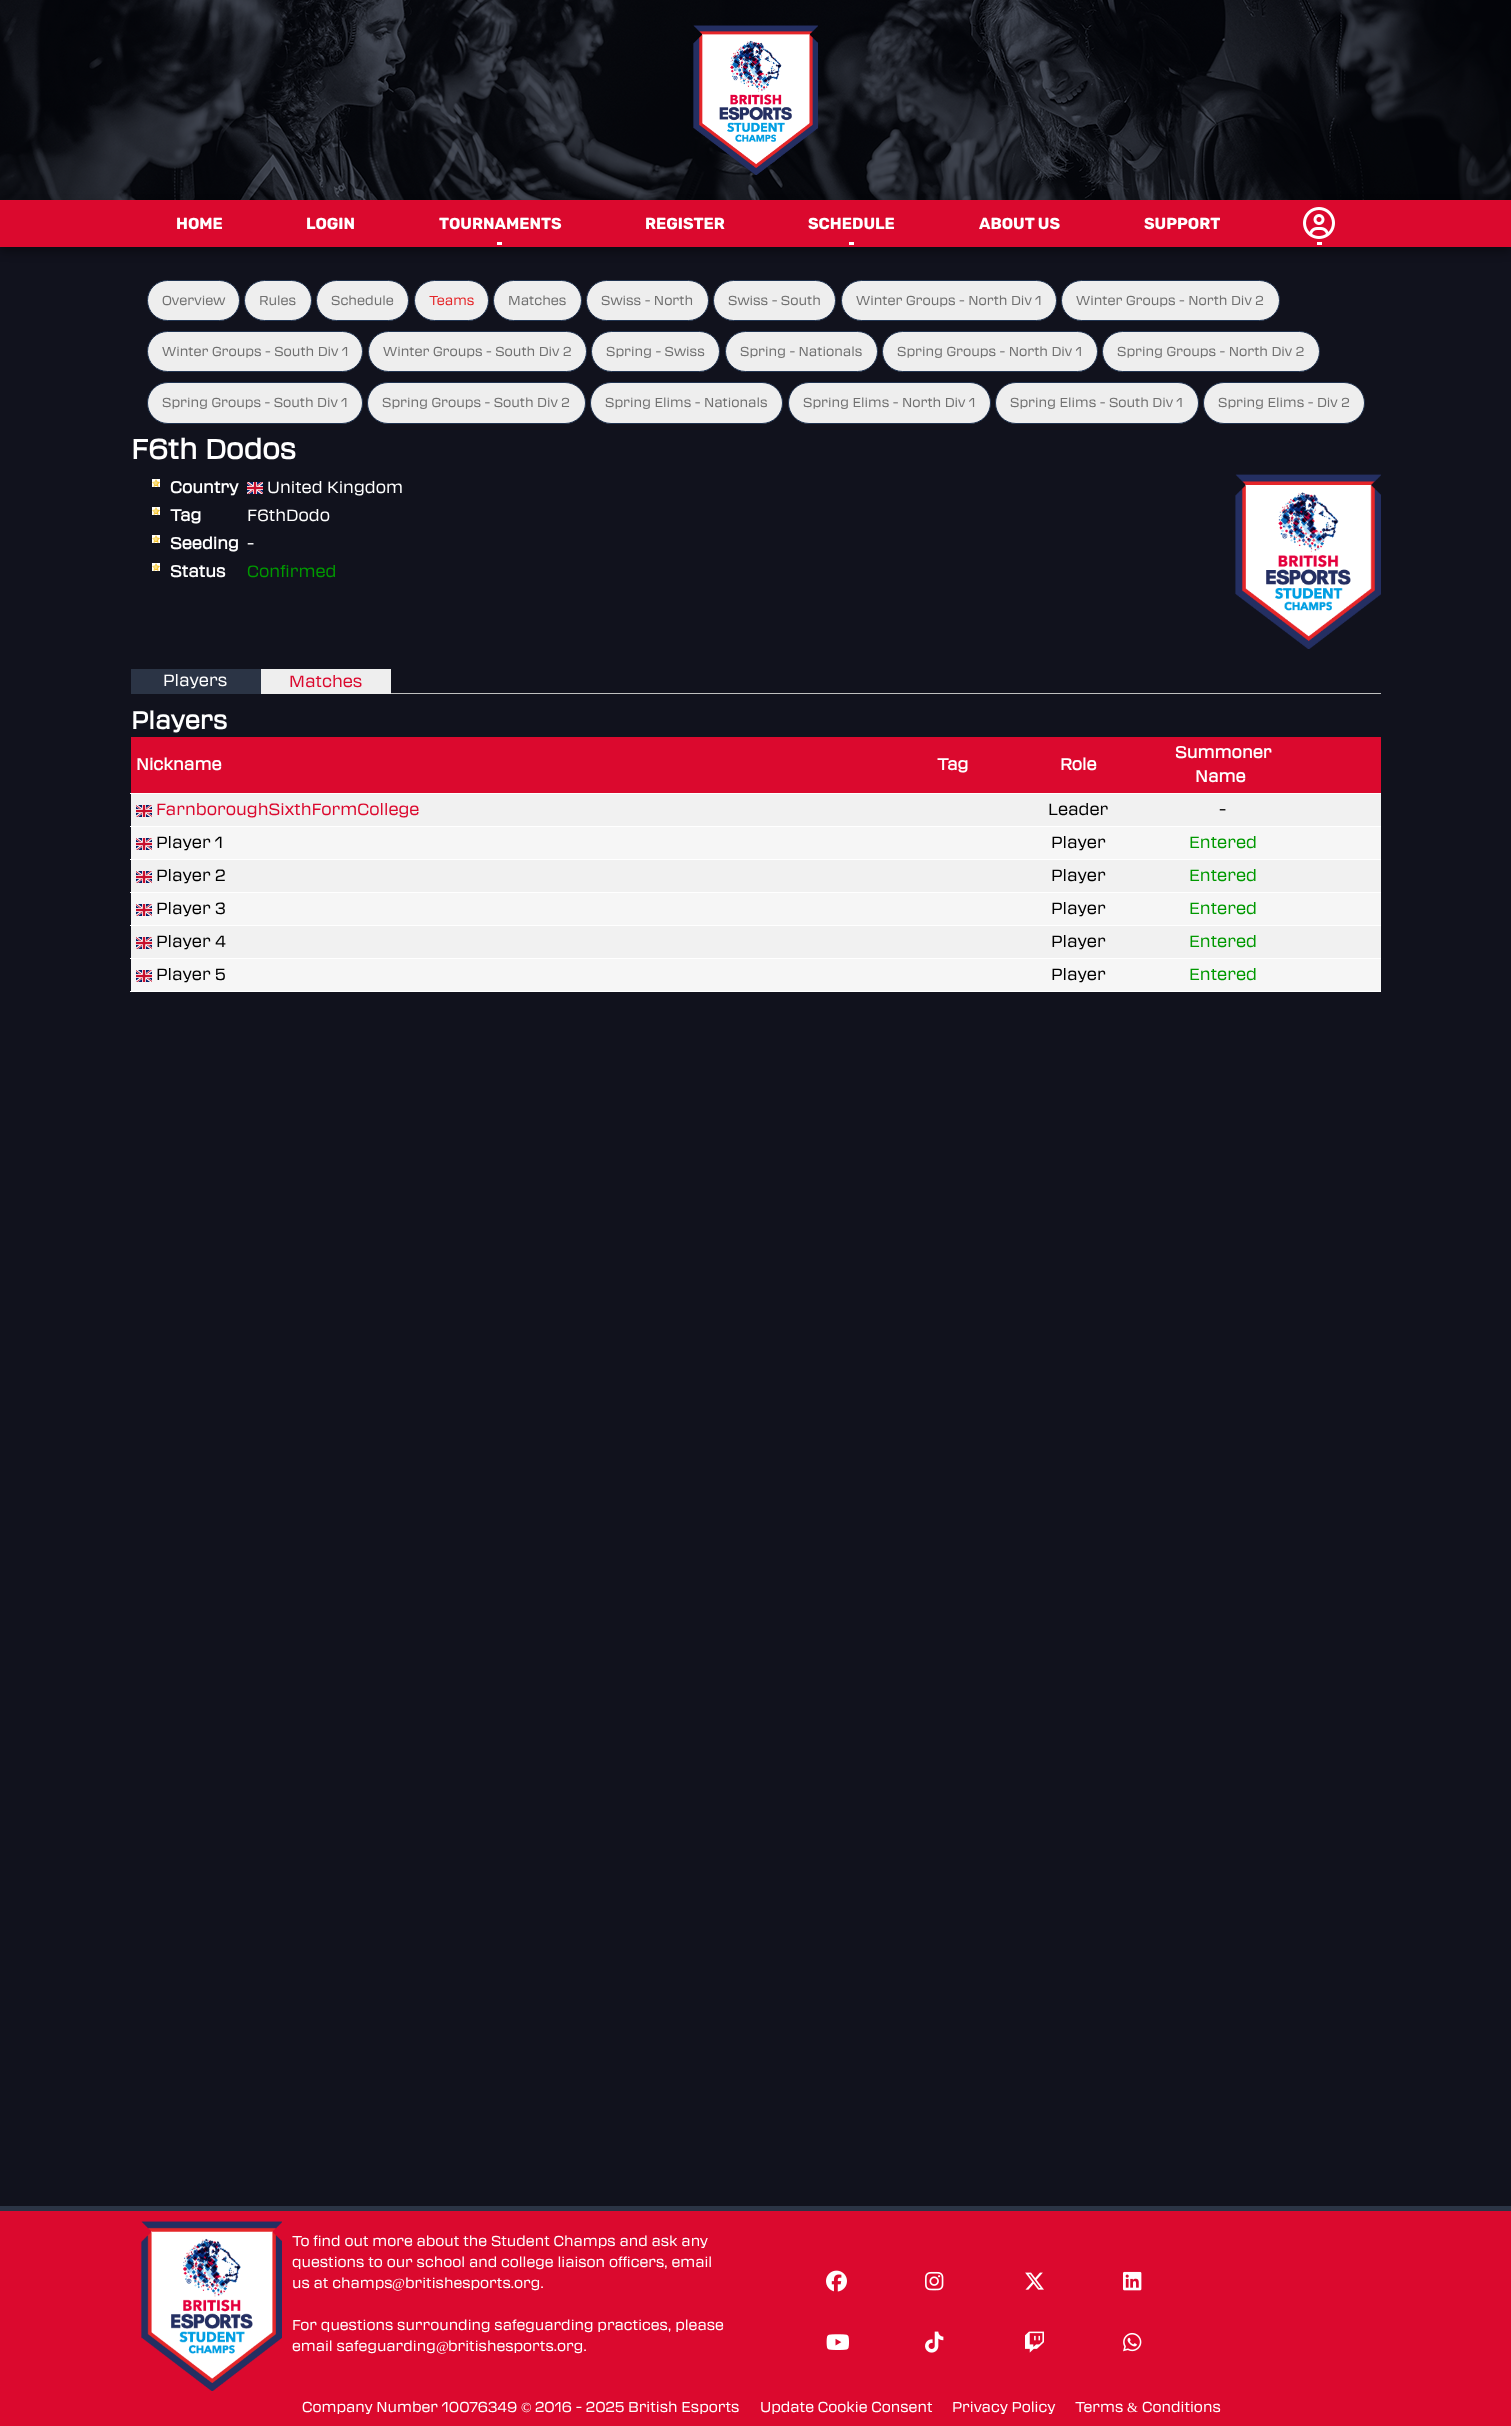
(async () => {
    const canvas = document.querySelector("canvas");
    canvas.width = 1511;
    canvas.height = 2426;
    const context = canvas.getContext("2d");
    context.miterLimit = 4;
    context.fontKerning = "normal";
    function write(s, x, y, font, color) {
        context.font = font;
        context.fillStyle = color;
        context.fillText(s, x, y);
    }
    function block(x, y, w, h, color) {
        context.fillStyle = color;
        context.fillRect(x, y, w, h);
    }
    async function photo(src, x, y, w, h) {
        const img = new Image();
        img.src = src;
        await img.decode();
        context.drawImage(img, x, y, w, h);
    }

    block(0, 0, 1511, 2426, "rgb(255, 255, 255)");
    await photo("media/1.png", 0, 0, 1511, 200);
    await photo("media/2.png", 693, 25, 125, 150);
    block(0, 247, 1511, 1959, "rgb(17, 18, 29)");
    context.fillStyle = "rgba(0, 0, 0, 0.36)";
    context.filter = "blur(5px)";
    context.beginPath();
    context.rect(0, 205, 1511, 47);
    context.fill();
    context.filter = "none";
    block(0, 200, 1511, 47, "rgb(219, 9, 46)");
    write("HOME", 176, 229, "bold 16px Rubik", "rgb(255, 255, 255)");
    write("LOGIN", 306, 229, "bold 16px Rubik", "rgb(255, 255, 255)");
    block(497, 242, 5, 3, "rgb(255, 255, 255)");
    write("TOURNAMENTS", 439, 229, "bold 16px Rubik", "rgb(255, 255, 255)");
    write("REGISTER", 645, 229, "bold 16px Rubik", "rgb(255, 255, 255)");
    block(849, 242, 5, 3, "rgb(255, 255, 255)");
    write("SCHEDULE", 808, 229, "bold 16px Rubik", "rgb(255, 255, 255)");
    write("ABOUT US", 979, 229, "bold 16px Rubik", "rgb(255, 255, 255)");
    write("SUPPORT", 1144, 229, "bold 16px Rubik", "rgb(255, 255, 255)");
    block(1317, 242, 5, 3, "rgb(255, 255, 255)");
    await photo("media/3.png", 1303, 207, 32, 32);
    context.fillStyle = "rgb(238, 238, 238)";
    context.beginPath();
    context.roundRect(147.5, 280.5, 92, 40, 20);
    context.fill();
    context.strokeStyle = "rgb(33, 52, 81)";
    context.stroke();
    write("Overview", 162, 305, "12.75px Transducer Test", "rgb(113, 113, 113)");
    context.fillStyle = "rgb(238, 238, 238)";
    context.beginPath();
    context.roundRect(244.5, 280.5, 67, 40, 20);
    context.fill();
    context.stroke();
    write("Rules", 259, 305, "12.75px Transducer Test", "rgb(113, 113, 113)");
    context.fillStyle = "rgb(238, 238, 238)";
    context.beginPath();
    context.roundRect(316.5, 280.5, 92, 40, 20);
    context.fill();
    context.stroke();
    write("Schedule", 331, 305, "12.75px Transducer Test", "rgb(113, 113, 113)");
    context.fillStyle = "rgb(238, 238, 238)";
    context.beginPath();
    context.roundRect(414.5, 280.5, 74, 40, 20);
    context.fill();
    context.stroke();
    write("Teams", 429, 305, "12.75px Transducer Test", "rgb(229, 38, 41)");
    context.fillStyle = "rgb(238, 238, 238)";
    context.beginPath();
    context.roundRect(493.5, 280.5, 88, 40, 20);
    context.fill();
    context.stroke();
    write("Matches", 508, 305, "12.75px Transducer Test", "rgb(113, 113, 113)");
    context.fillStyle = "rgb(238, 238, 238)";
    context.beginPath();
    context.roundRect(586.5, 280.5, 122, 40, 20);
    context.fill();
    context.stroke();
    write("Swiss - North", 601, 305, "12.75px Transducer Test", "rgb(113, 113, 113)");
    context.fillStyle = "rgb(238, 238, 238)";
    context.beginPath();
    context.roundRect(713.5, 280.5, 122, 40, 20);
    context.fill();
    context.stroke();
    write("Swiss - South", 728, 305, "12.75px Transducer Test", "rgb(113, 113, 113)");
    context.fillStyle = "rgb(238, 238, 238)";
    context.beginPath();
    context.roundRect(841.5, 280.5, 215, 40, 20);
    context.fill();
    context.stroke();
    write("Winter Groups - North Div 1", 856, 305, "12.75px Transducer Test", "rgb(113, 113, 113)");
    context.fillStyle = "rgb(238, 238, 238)";
    context.beginPath();
    context.roundRect(1061.5, 280.5, 218, 40, 20);
    context.fill();
    context.stroke();
    write("Winter Groups - North Div 2", 1076, 305, "12.75px Transducer Test", "rgb(113, 113, 113)");
    context.fillStyle = "rgb(238, 238, 238)";
    context.beginPath();
    context.roundRect(147.5, 331.5, 215, 40, 20);
    context.fill();
    context.stroke();
    write("Winter Groups - South Div 1", 162, 356, "12.75px Transducer Test", "rgb(113, 113, 113)");
    context.fillStyle = "rgb(238, 238, 238)";
    context.beginPath();
    context.roundRect(368.5, 331.5, 218, 40, 20);
    context.fill();
    context.stroke();
    write("Winter Groups - South Div 2", 383, 356, "12.75px Transducer Test", "rgb(113, 113, 113)");
    context.fillStyle = "rgb(238, 238, 238)";
    context.beginPath();
    context.roundRect(591.5, 331.5, 128, 40, 20);
    context.fill();
    context.stroke();
    write("Spring - Swiss", 606, 356, "12.75px Transducer Test", "rgb(113, 113, 113)");
    context.fillStyle = "rgb(238, 238, 238)";
    context.beginPath();
    context.roundRect(725.5, 331.5, 152, 40, 20);
    context.fill();
    context.stroke();
    write("Spring - Nationals", 740, 356, "12.75px Transducer Test", "rgb(113, 113, 113)");
    context.fillStyle = "rgb(238, 238, 238)";
    context.beginPath();
    context.roundRect(882.5, 331.5, 215, 40, 20);
    context.fill();
    context.stroke();
    write("Spring Groups - North Div 1", 897, 356, "12.75px Transducer Test", "rgb(113, 113, 113)");
    context.fillStyle = "rgb(238, 238, 238)";
    context.beginPath();
    context.roundRect(1102.5, 331.5, 217, 40, 20);
    context.fill();
    context.stroke();
    write("Spring Groups - North Div 2", 1117, 356, "12.75px Transducer Test", "rgb(113, 113, 113)");
    context.fillStyle = "rgb(238, 238, 238)";
    context.beginPath();
    context.roundRect(147.5, 382.5, 215, 41, 20.5);
    context.fill();
    context.stroke();
    write("Spring Groups - South Div 1", 162, 407, "12.75px Transducer Test", "rgb(113, 113, 113)");
    context.fillStyle = "rgb(238, 238, 238)";
    context.beginPath();
    context.roundRect(367.5, 382.5, 218, 41, 20.5);
    context.fill();
    context.stroke();
    write("Spring Groups - South Div 2", 382, 407, "12.75px Transducer Test", "rgb(113, 113, 113)");
    context.fillStyle = "rgb(238, 238, 238)";
    context.beginPath();
    context.roundRect(590.5, 382.5, 192, 41, 20.5);
    context.fill();
    context.stroke();
    write("Spring Elims - Nationals", 605, 407, "12.75px Transducer Test", "rgb(113, 113, 113)");
    context.fillStyle = "rgb(238, 238, 238)";
    context.beginPath();
    context.roundRect(788.5, 382.5, 202, 41, 20.5);
    context.fill();
    context.stroke();
    write("Spring Elims - North Div 1", 803, 407, "12.75px Transducer Test", "rgb(113, 113, 113)");
    context.fillStyle = "rgb(238, 238, 238)";
    context.beginPath();
    context.roundRect(995.5, 382.5, 203, 41, 20.5);
    context.fill();
    context.stroke();
    write("Spring Elims - South Div 1", 1010, 407, "12.75px Transducer Test", "rgb(113, 113, 113)");
    context.fillStyle = "rgb(238, 238, 238)";
    context.beginPath();
    context.roundRect(1203.5, 382.5, 161, 41, 20.5);
    context.fill();
    context.stroke();
    write("Spring Elims - Div 2", 1218, 407, "12.75px Transducer Test", "rgb(113, 113, 113)");
    write("F6th Dodos", 131, 459, "bold 27.25px Transducer Test", "rgb(255, 255, 255)");
    await photo("media/4.png", 152, 479, 8, 8);
    write("Country", 170, 493, "bold 16px Transducer Test", "rgb(255, 255, 255)");
    await photo("media/5.png", 247, 482, 16, 12);
    write("United Kingdom", 267, 493, "16px Transducer Test", "rgb(255, 255, 255)");
    await photo("media/4.png", 152, 507, 8, 8);
    write("Tag", 170, 521, "bold 16px Transducer Test", "rgb(255, 255, 255)");
    write("F6thDodo", 247, 521, "16px Transducer Test", "rgb(255, 255, 255)");
    await photo("media/4.png", 152, 535, 8, 8);
    write("Seeding", 170, 549, "bold 16px Transducer Test", "rgb(255, 255, 255)");
    write("-", 247, 549, "16px Transducer Test", "rgb(255, 255, 255)");
    await photo("media/4.png", 152, 563, 8, 8);
    write("Status", 170, 577, "bold 16px Transducer Test", "rgb(255, 255, 255)");
    write("Confirmed", 247, 577, "16px Transducer Test", "rgb(0, 153, 0)");
    await photo("media/6.png", 1235, 474, 146, 175);
    block(391, 693, 990, 1, "rgb(192, 192, 192)");
    block(131, 669, 130, 25, "rgb(43, 52, 69)");
    write("Players", 163, 686, "16px Transducer Test", "rgb(255, 255, 255)");
    block(261, 669, 130, 25, "rgb(238, 238, 238)");
    write("Matches", 289, 687, "16px Transducer Test", "rgb(219, 9, 46)");
    write("Players", 131, 729, "bold 24px Transducer Test", "rgb(255, 255, 255)");
    block(131, 737, 1250, 56, "rgb(219, 9, 46)");
    write("Nickname", 136, 770, "bold 16px Transducer Test", "rgb(255, 255, 255)");
    write("Tag", 937, 770, "bold 16px Transducer Test", "rgb(255, 255, 255)");
    write("Role", 1060, 770, "bold 16px Transducer Test", "rgb(255, 255, 255)");
    write("Summoner", 1175, 758, "bold 16px Transducer Test", "rgb(255, 255, 255)");
    write("Name", 1195, 782, "bold 16px Transducer Test", "rgb(255, 255, 255)");
    block(130, 793, 1251, 1, "rgb(255, 255, 255)");
    block(131, 794, 1250, 32, "rgb(241, 241, 241)");
    await photo("media/5.png", 136, 805, 16, 12);
    write("FarnboroughSixthFormCollege", 156, 815, "16px Transducer Test", "rgb(219, 9, 46)");
    write("Leader", 1048, 815, "16px Transducer Test", "rgb(0, 0, 0)");
    write("-", 1219, 815, "16px Transducer Test", "rgb(0, 0, 0)");
    block(130, 826, 1251, 1, "rgb(255, 255, 255)");
    block(131, 827, 1250, 32, "rgb(246, 246, 246)");
    await photo("media/5.png", 136, 838, 16, 12);
    write("Player 1", 156, 848, "16px Transducer Test", "rgb(0, 0, 0)");
    write("Player", 1051, 848, "16px Transducer Test", "rgb(0, 0, 0)");
    write("Entered", 1189, 848, "16px Transducer Test", "rgb(0, 153, 0)");
    block(130, 859, 1251, 1, "rgb(255, 255, 255)");
    block(131, 860, 1250, 32, "rgb(241, 241, 241)");
    await photo("media/5.png", 136, 871, 16, 12);
    write("Player 2", 156, 881, "16px Transducer Test", "rgb(0, 0, 0)");
    write("Player", 1051, 881, "16px Transducer Test", "rgb(0, 0, 0)");
    write("Entered", 1189, 881, "16px Transducer Test", "rgb(0, 153, 0)");
    block(130, 892, 1251, 1, "rgb(255, 255, 255)");
    block(131, 893, 1250, 32, "rgb(246, 246, 246)");
    await photo("media/5.png", 136, 904, 16, 12);
    write("Player 3", 156, 914, "16px Transducer Test", "rgb(0, 0, 0)");
    write("Player", 1051, 914, "16px Transducer Test", "rgb(0, 0, 0)");
    write("Entered", 1189, 914, "16px Transducer Test", "rgb(0, 153, 0)");
    block(130, 925, 1251, 1, "rgb(255, 255, 255)");
    block(131, 926, 1250, 32, "rgb(241, 241, 241)");
    await photo("media/5.png", 136, 937, 16, 12);
    write("Player 4", 156, 947, "16px Transducer Test", "rgb(0, 0, 0)");
    write("Player", 1051, 947, "16px Transducer Test", "rgb(0, 0, 0)");
    write("Entered", 1189, 947, "16px Transducer Test", "rgb(0, 153, 0)");
    block(130, 958, 1251, 1, "rgb(255, 255, 255)");
    block(131, 959, 1250, 32, "rgb(246, 246, 246)");
    await photo("media/5.png", 136, 970, 16, 12);
    write("Player 5", 156, 980, "16px Transducer Test", "rgb(0, 0, 0)");
    write("Player", 1051, 980, "16px Transducer Test", "rgb(0, 0, 0)");
    write("Entered", 1189, 980, "16px Transducer Test", "rgb(0, 153, 0)");
    block(130, 991, 1251, 1, "rgb(255, 255, 255)");
    block(0, 2206, 1511, 5, "rgb(43, 52, 69)");
    block(0, 2211, 1511, 215, "rgb(219, 9, 46)");
    await photo("media/7.png", 141, 2221, 141, 170);
    write("To find out more about the Student Champs and ask any", 292, 2246, "14px Transducer Test", "rgb(255, 255, 255)");
    write("questions to our school and college liaison officers, email", 292, 2267, "14px Transducer Test", "rgb(255, 255, 255)");
    write("us at champs", 292, 2288, "14px Transducer Test", "rgb(255, 255, 255)");
    write("@", 392, 2288, "14px Liberation Serif", "rgb(255, 255, 255)");
    write("britishesports.org.", 405, 2288, "14px Transducer Test", "rgb(255, 255, 255)");
    write("For questions surrounding safeguarding practices, please", 292, 2330, "14px Transducer Test", "rgb(255, 255, 255)");
    write("email safeguarding", 292, 2351, "14px Transducer Test", "rgb(255, 255, 255)");
    write("@", 436, 2351, "14px Liberation Serif", "rgb(255, 255, 255)");
    write("britishesports.org.", 448, 2351, "14px Transducer Test", "rgb(255, 255, 255)");
    await photo("media/8.png", 826, 2270, 21, 22);
    await photo("media/9.png", 925, 2271, 19, 20);
    await photo("media/10.png", 1025, 2272, 19, 18);
    await photo("media/11.png", 1123, 2271, 19, 20);
    await photo("media/12.png", 826, 2334, 23, 16);
    await photo("media/13.png", 925, 2331, 19, 22);
    await photo("media/14.png", 1025, 2331, 19, 22);
    await photo("media/15.png", 1123, 2332, 19, 20);
    write("Company Number 10076349", 302, 2412, "14px Transducer Test", "rgb(255, 255, 255)");
    write("©", 521, 2412, "14px Liberation Serif", "rgb(255, 255, 255)");
    write("2016 - 2025 British Esports", 535, 2412, "14px Transducer Test", "rgb(255, 255, 255)");
    write("Update Cookie Consent", 760, 2412, "14px Transducer Test", "rgb(255, 255, 255)");
    write("Privacy Policy", 952, 2412, "14px Transducer Test", "rgb(255, 255, 255)");
    write("Terms", 1075, 2412, "14px Transducer Test", "rgb(255, 255, 255)");
    write("&", 1127, 2412, "14px Liberation Serif", "rgb(255, 255, 255)");
    write("Conditions", 1142, 2412, "14px Transducer Test", "rgb(255, 255, 255)");
})();
